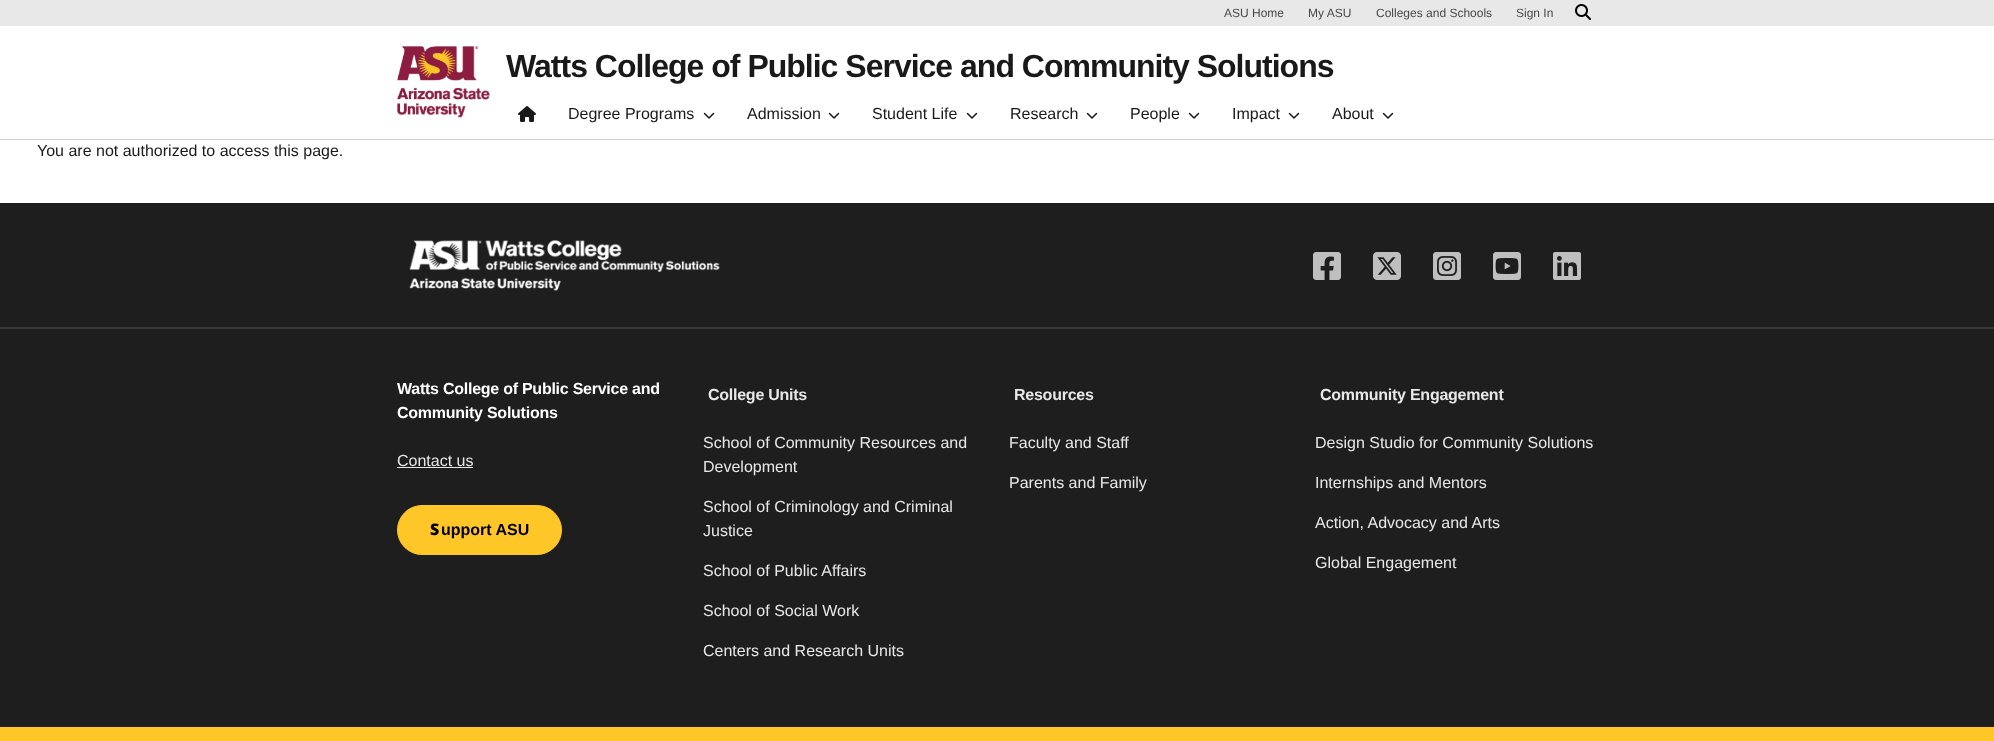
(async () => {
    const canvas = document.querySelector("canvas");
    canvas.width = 1994;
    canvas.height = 741;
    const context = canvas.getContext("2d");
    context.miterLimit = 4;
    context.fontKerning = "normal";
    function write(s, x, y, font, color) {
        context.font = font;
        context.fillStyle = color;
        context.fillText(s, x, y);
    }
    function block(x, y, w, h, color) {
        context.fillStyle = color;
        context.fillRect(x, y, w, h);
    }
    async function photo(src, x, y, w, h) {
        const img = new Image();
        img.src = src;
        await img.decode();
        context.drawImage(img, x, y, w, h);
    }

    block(0, 0, 1994, 741, "rgb(255, 255, 255)");
    block(0, 0, 1994, 26, "rgb(232, 232, 232)");
    write("ASU Home", 1224, 17, "12px Liberation Sans", "rgb(72, 72, 72)");
    write("My ASU", 1308, 17, "12px Liberation Sans", "rgb(72, 72, 72)");
    write("Colleges and Schools", 1376, 17, "12px Liberation Sans", "rgb(72, 72, 72)");
    write("Sign In", 1516, 17, "12px Liberation Sans", "rgb(72, 72, 72)");
    await photo("media/1.png", 1575, 4, 16, 16);
    block(0, 139, 1994, 1, "rgb(208, 208, 208)");
    await photo("media/2.png", 397, 46, 93, 72);
    context.letterSpacing = "-1px";
    write("Watts College of Public Service and Community Solutions", 506, 77, "bold 32px Liberation Sans", "rgb(25, 25, 25)");
    await photo("media/3.png", 518, 106, 18, 16);
    context.letterSpacing = "0px";
    write("Degree Programs", 568, 119, "16px Liberation Sans", "rgb(25, 25, 25)");
    await photo("media/4.png", 703, 112, 12, 7);
    write("Admission", 747, 119, "16px Liberation Sans", "rgb(25, 25, 25)");
    await photo("media/4.png", 828, 112, 12, 7);
    write("Student Life", 872, 119, "16px Liberation Sans", "rgb(25, 25, 25)");
    await photo("media/4.png", 966, 112, 12, 7);
    write("Research", 1010, 119, "16px Liberation Sans", "rgb(25, 25, 25)");
    await photo("media/4.png", 1086, 112, 12, 7);
    write("People", 1130, 119, "16px Liberation Sans", "rgb(25, 25, 25)");
    await photo("media/4.png", 1188, 112, 12, 7);
    write("Impact", 1232, 119, "16px Liberation Sans", "rgb(25, 25, 25)");
    await photo("media/4.png", 1288, 112, 12, 7);
    write("About", 1332, 119, "16px Liberation Sans", "rgb(25, 25, 25)");
    await photo("media/4.png", 1382, 112, 12, 7);
    write("You are not authorized to access this page.", 37, 156, "16px Liberation Sans", "rgb(25, 25, 25)");
    block(0, 203, 1994, 124, "rgb(30, 30, 30)");
    await photo("media/5.png", 409, 240, 311, 51);
    await photo("media/6.png", 1313, 252, 28, 28);
    await photo("media/7.png", 1373, 252, 28, 28);
    await photo("media/8.png", 1433, 252, 28, 28);
    await photo("media/9.png", 1493, 252, 28, 28);
    await photo("media/10.png", 1553, 252, 28, 28);
    block(0, 329, 1994, 398, "rgb(30, 30, 30)");
    block(0, 327, 1994, 2, "rgb(57, 57, 57)");
    context.letterSpacing = "-0.25px";
    write("Watts College of Public Service and", 397, 394, "bold 16px Liberation Sans", "rgb(255, 255, 255)");
    write("Community Solutions", 397, 418, "bold 16px Liberation Sans", "rgb(255, 255, 255)");
    context.letterSpacing = "0px";
    write("Contact us", 397, 466, "16px Liberation Sans", "rgb(232, 232, 232)");
    block(397, 467, 76, 1, "rgb(232, 232, 232)");
    context.fillStyle = "rgb(255, 198, 39)";
    context.beginPath();
    context.roundRect(397.5, 505.5, 164, 49, 24.5);
    context.fill();
    context.strokeStyle = "rgb(255, 198, 39)";
    context.stroke();
    write("S", 430, 535, "900 16px Noto Sans", "rgb(0, 0, 0)");
    write("upport ASU", 441, 535, "bold 16px Liberation Sans", "rgb(0, 0, 0)");
    context.letterSpacing = "-0.25px";
    write("College Units", 708, 400, "bold 16px Liberation Sans", "rgb(232, 232, 232)");
    context.letterSpacing = "0px";
    write("School of Community Resources and", 703, 448, "16px Liberation Sans", "rgb(232, 232, 232)");
    write("Development", 703, 472, "16px Liberation Sans", "rgb(232, 232, 232)");
    write("School of Criminology and Criminal", 703, 512, "16px Liberation Sans", "rgb(232, 232, 232)");
    write("Justice", 703, 536, "16px Liberation Sans", "rgb(232, 232, 232)");
    write("School of Public Affairs", 703, 576, "16px Liberation Sans", "rgb(232, 232, 232)");
    write("School of Social Work", 703, 616, "16px Liberation Sans", "rgb(232, 232, 232)");
    write("Centers and Research Units", 703, 656, "16px Liberation Sans", "rgb(232, 232, 232)");
    context.letterSpacing = "-0.25px";
    write("Resources", 1014, 400, "bold 16px Liberation Sans", "rgb(232, 232, 232)");
    context.letterSpacing = "0px";
    write("Faculty and Staff", 1009, 448, "16px Liberation Sans", "rgb(232, 232, 232)");
    write("Parents and Family", 1009, 488, "16px Liberation Sans", "rgb(232, 232, 232)");
    context.letterSpacing = "-0.25px";
    write("Community Engagement", 1320, 400, "bold 16px Liberation Sans", "rgb(232, 232, 232)");
    context.letterSpacing = "0px";
    write("Design Studio for Community Solutions", 1315, 448, "16px Liberation Sans", "rgb(232, 232, 232)");
    write("Internships and Mentors", 1315, 488, "16px Liberation Sans", "rgb(232, 232, 232)");
    write("Action, Advocacy and Arts", 1315, 528, "16px Liberation Sans", "rgb(232, 232, 232)");
    write("Global Engagement", 1315, 568, "16px Liberation Sans", "rgb(232, 232, 232)");
    block(0, 727, 1994, 14, "rgb(255, 198, 39)");
})();
